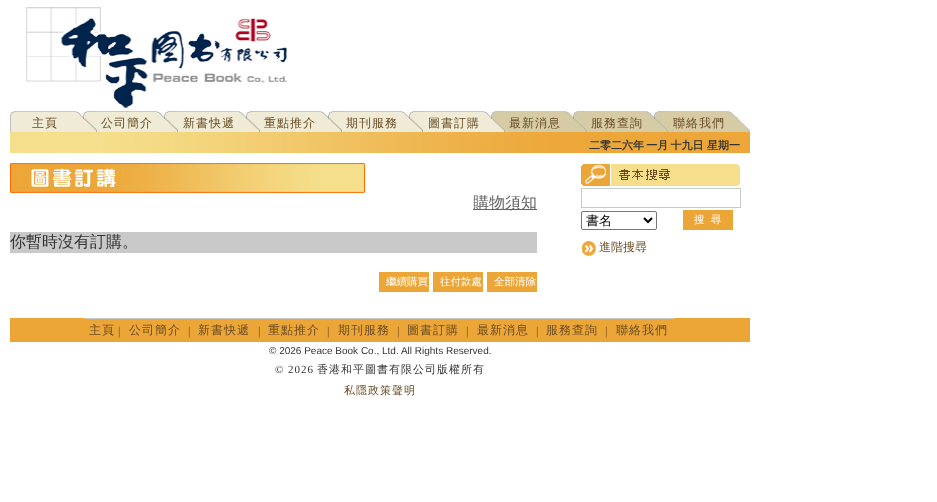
(async () => {
    const canvas = document.querySelector("canvas");
    canvas.width = 937;
    canvas.height = 502;
    const context = canvas.getContext("2d");
    context.miterLimit = 4;
    context.fontKerning = "normal";
    function write(s, x, y, font, color) {
        context.font = font;
        context.fillStyle = color;
        context.fillText(s, x, y);
    }
    function block(x, y, w, h, color) {
        context.fillStyle = color;
        context.fillRect(x, y, w, h);
    }
    async function photo(src, x, y, w, h) {
        const img = new Image();
        img.src = src;
        await img.decode();
        context.drawImage(img, x, y, w, h);
    }

    block(0, 0, 937, 502, "rgb(255, 255, 255)");
    await photo("media/1.png", 26, 7, 261, 101);
    await photo("media/2.png", 10, 111, 5, 21);
    block(15, 112, 61, 20, "rgb(239, 235, 214)");
    block(15, 111, 61, 1, "rgb(201, 201, 201)");
    context.letterSpacing = "1px";
    write("主頁", 32, 127, "500 12px WenQuanYi Zen Hei", "rgb(105, 76, 36)");
    await photo("media/3.png", 76, 111, 21, 21);
    block(97, 112, 60, 20, "rgb(239, 235, 214)");
    block(97, 111, 60, 1, "rgb(201, 201, 201)");
    write("公司簡介", 101, 127, "500 12px WenQuanYi Zen Hei", "rgb(105, 76, 36)");
    await photo("media/3.png", 157, 111, 21, 21);
    block(178, 112, 61, 20, "rgb(239, 235, 214)");
    block(178, 111, 61, 1, "rgb(201, 201, 201)");
    write("新書快遞", 183, 127, "500 12px WenQuanYi Zen Hei", "rgb(105, 76, 36)");
    await photo("media/3.png", 239, 111, 21, 21);
    block(260, 112, 61, 20, "rgb(239, 235, 214)");
    block(260, 111, 61, 1, "rgb(201, 201, 201)");
    write("重點推介", 264, 127, "500 12px WenQuanYi Zen Hei", "rgb(105, 76, 36)");
    await photo("media/3.png", 321, 111, 21, 21);
    block(342, 112, 60, 20, "rgb(239, 235, 214)");
    block(342, 111, 60, 1, "rgb(201, 201, 201)");
    write("期刊服務", 346, 127, "500 12px WenQuanYi Zen Hei", "rgb(105, 76, 36)");
    await photo("media/3.png", 402, 111, 21, 21);
    block(423, 112, 61, 20, "rgb(239, 235, 214)");
    block(423, 111, 61, 1, "rgb(201, 201, 201)");
    write("圖書訂購", 428, 127, "500 12px WenQuanYi Zen Hei", "rgb(105, 76, 36)");
    await photo("media/4.png", 484, 111, 21, 21);
    block(505, 112, 61, 20, "rgb(214, 203, 165)");
    block(505, 111, 61, 1, "rgb(201, 201, 201)");
    write("最新消息", 509, 127, "500 12px WenQuanYi Zen Hei", "rgb(105, 76, 36)");
    await photo("media/5.png", 566, 111, 21, 21);
    block(587, 112, 60, 20, "rgb(214, 203, 165)");
    block(587, 111, 60, 1, "rgb(201, 201, 201)");
    write("服務查詢", 591, 127, "500 12px WenQuanYi Zen Hei", "rgb(105, 76, 36)");
    await photo("media/5.png", 647, 111, 21, 21);
    block(668, 112, 61, 20, "rgb(214, 203, 165)");
    block(668, 111, 61, 1, "rgb(201, 201, 201)");
    write("聯絡我們", 673, 127, "500 12px WenQuanYi Zen Hei", "rgb(105, 76, 36)");
    await photo("media/6.png", 729, 111, 21, 21);
    await photo("media/7.png", 10, 132, 730, 21);
    context.letterSpacing = "0px";
    context.wordSpacing = "-1px";
    write("二零二六年 一月 十九日", 589, 149, "bold 11px WenQuanYi Zen Hei", "rgb(52, 52, 52)");
    context.wordSpacing = "0px";
    write("星期一", 707, 149, "bold 11px WenQuanYi Zen Hei", "rgb(52, 52, 52)");
    block(740, 132, 10, 21, "rgb(237, 167, 56)");
    await photo("media/8.png", 10, 163, 355, 30);
    block(473, 209, 64, 1, "rgb(100, 100, 100)");
    write("購物須知", 473, 208, "500 16px WenQuanYi Zen Hei", "rgb(100, 100, 100)");
    block(10, 232, 527, 21, "rgb(201, 201, 201)");
    write("你暫時沒有訂購。", 10, 247, "500 16px WenQuanYi Zen Hei", "rgb(52, 52, 52)");
    block(379, 272, 50, 20, "rgb(236, 166, 56)");
    context.save();
    context.beginPath();
    context.rect(380, 273, 48, 18);
    context.clip();
    write("繼續購買", 386, 285, "500 10.5px WenQuanYi Zen Hei", "rgb(255, 255, 255)");
    context.restore();
    block(433, 272, 50, 20, "rgb(236, 166, 56)");
    write("往付款處", 440, 285, "500 10.5px WenQuanYi Zen Hei", "rgb(255, 255, 255)");
    block(487, 272, 50, 20, "rgb(236, 166, 56)");
    write("全部清除", 494, 285, "500 10.5px WenQuanYi Zen Hei", "rgb(255, 255, 255)");
    await photo("media/9.png", 581, 164, 159, 22);
    context.strokeStyle = "rgb(201, 201, 201)";
    context.strokeRect(581.5, 188.5, 159, 19);
    context.beginPath();
    context.roundRect(581.5, 211.5, 75, 18, 1.5);
    context.strokeStyle = "rgb(118, 118, 118)";
    context.stroke();
    context.beginPath();
    context.moveTo(644, 218);
    context.lineTo(648, 222);
    context.lineTo(652, 218);
    context.strokeStyle = "rgb(0, 0, 0)";
    context.lineWidth = 2;
    context.stroke();
    write("書名", 586, 225, "500 13px WenQuanYi Zen Hei", "rgb(0, 0, 0)");
    block(683, 210, 50, 20, "rgb(236, 166, 56)");
    write("搜  尋", 694, 223, "500 10.5px WenQuanYi Zen Hei", "rgb(255, 255, 255)");
    await photo("media/10.png", 582, 241, 14, 15);
    write("進階搜尋", 599, 251, "500 12px WenQuanYi Zen Hei", "rgb(105, 76, 36)");
    block(10, 318, 740, 24, "rgb(236, 166, 56)");
    block(85, 318, 589, 1, "rgb(201, 201, 201)");
    context.letterSpacing = "1px";
    write("主頁", 89, 334, "500 12px WenQuanYi Zen Hei", "rgb(105, 76, 36)");
    write("|", 118, 335, "12px Liberation Serif", "rgb(105, 76, 36)");
    write("公司簡介", 129, 334, "500 12px WenQuanYi Zen Hei", "rgb(105, 76, 36)");
    write("|", 188, 335, "12px Liberation Serif", "rgb(105, 76, 36)");
    write("新書快遞", 198, 334, "500 12px WenQuanYi Zen Hei", "rgb(105, 76, 36)");
    write("|", 258, 335, "12px Liberation Serif", "rgb(105, 76, 36)");
    write("重點推介", 268, 334, "500 12px WenQuanYi Zen Hei", "rgb(105, 76, 36)");
    write("|", 327, 335, "12px Liberation Serif", "rgb(105, 76, 36)");
    write("期刊服務", 338, 334, "500 12px WenQuanYi Zen Hei", "rgb(105, 76, 36)");
    write("|", 397, 335, "12px Liberation Serif", "rgb(105, 76, 36)");
    write("圖書訂購", 407, 334, "500 12px WenQuanYi Zen Hei", "rgb(105, 76, 36)");
    write("|", 466, 335, "12px Liberation Serif", "rgb(105, 76, 36)");
    write("最新消息", 477, 334, "500 12px WenQuanYi Zen Hei", "rgb(105, 76, 36)");
    write("|", 536, 335, "12px Liberation Serif", "rgb(105, 76, 36)");
    write("服務查詢", 546, 334, "500 12px WenQuanYi Zen Hei", "rgb(105, 76, 36)");
    write("|", 605, 335, "12px Liberation Serif", "rgb(105, 76, 36)");
    write("聯絡我們", 616, 334, "500 12px WenQuanYi Zen Hei", "rgb(105, 76, 36)");
    context.letterSpacing = "0px";
    write("© 2026 Peace Book Co., Ltd. All Rights Reserved.", 269, 354, "10px Liberation Sans", "rgb(52, 52, 52)");
    context.letterSpacing = "1px";
    write("© 2026", 275, 373, "11px Liberation Serif", "rgb(52, 52, 52)");
    write("香港和平圖書有限公司版權所有", 317, 373, "500 11px WenQuanYi Zen Hei", "rgb(52, 52, 52)");
    write("私隱政策聲明", 344, 394, "500 11px WenQuanYi Zen Hei", "rgb(105, 76, 36)");
})();
